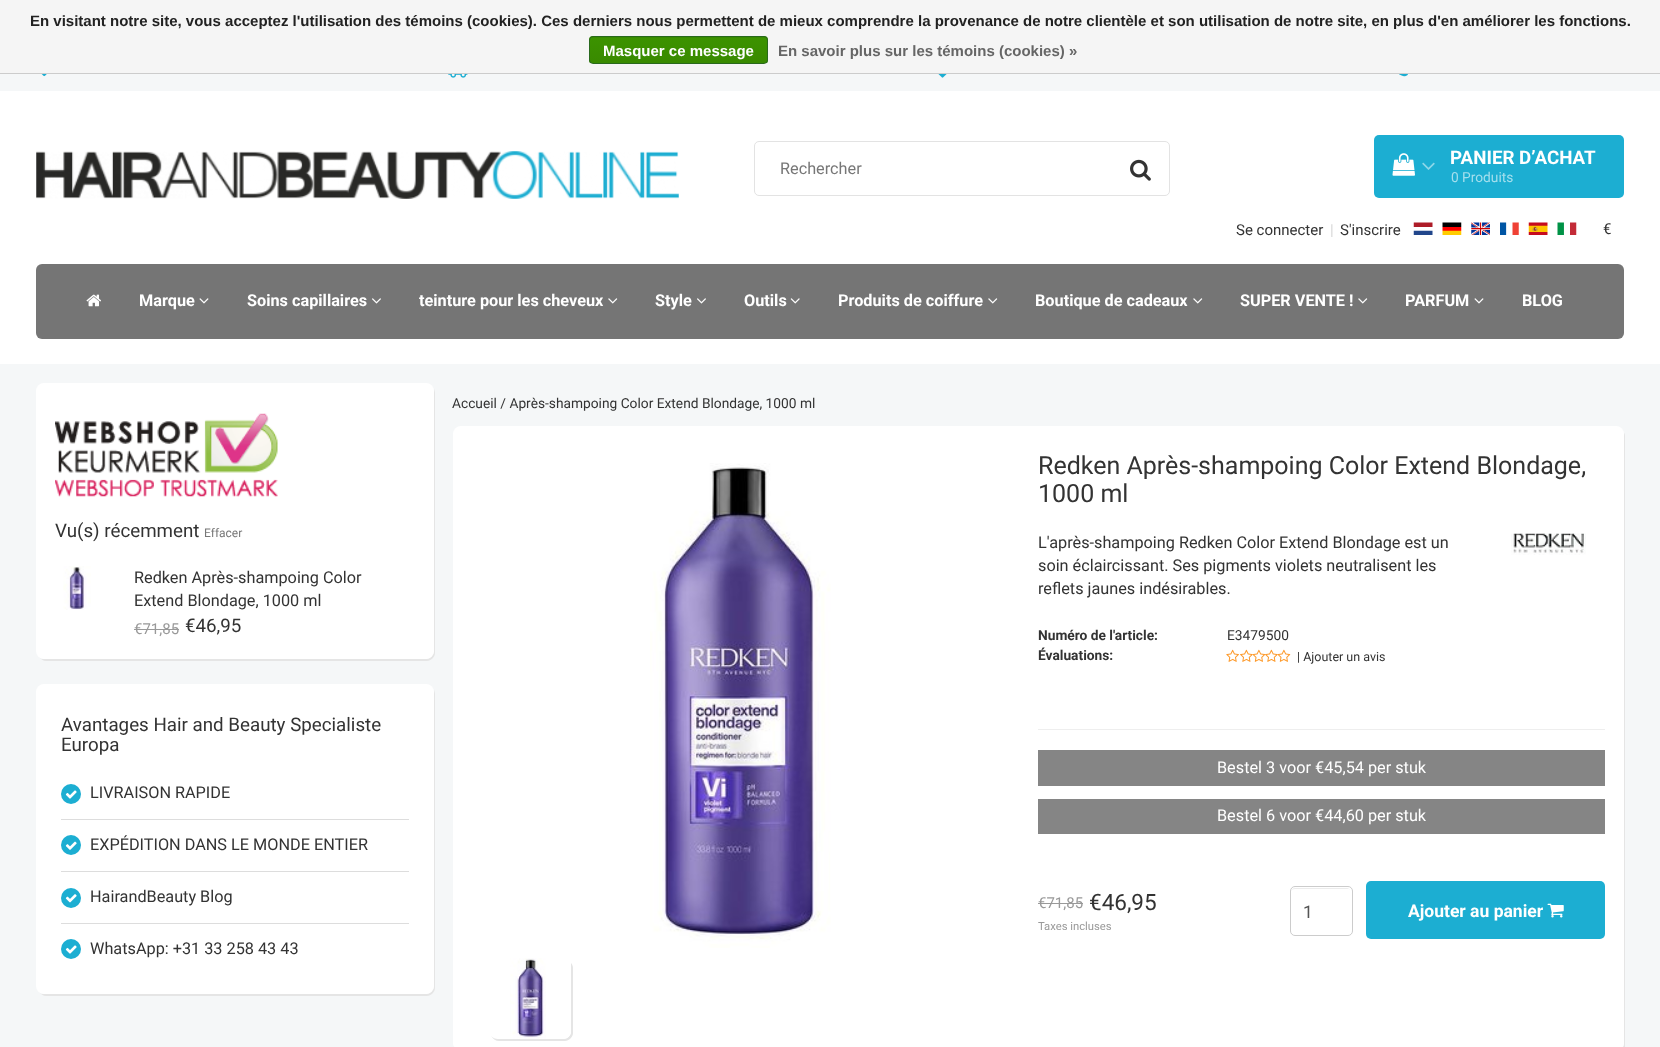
(async () => {
    const canvas = document.querySelector("canvas");
    canvas.width = 1660;
    canvas.height = 1047;
    const context = canvas.getContext("2d");
    context.miterLimit = 4;
    context.fontKerning = "normal";
    function write(s, x, y, font, color) {
        context.font = font;
        context.fillStyle = color;
        context.fillText(s, x, y);
    }
    function block(x, y, w, h, color) {
        context.fillStyle = color;
        context.fillRect(x, y, w, h);
    }
    function card(x, y, w, h, r, color) {
        context.fillStyle = color;
        context.beginPath();
        context.roundRect(x, y, w, h, r);
        context.fill();
    }
    async function photo(src, x, y, w, h) {
        const img = new Image();
        img.src = src;
        await img.decode();
        context.drawImage(img, x, y, w, h);
    }
    let gradient;

    block(0, 0, 1660, 1047, "rgb(245, 247, 248)");
    block(0, 0, 1660, 73, "rgb(245, 245, 245)");
    block(0, 73, 1660, 1, "rgb(204, 204, 204)");
    write("En visitant notre site, vous acceptez l'utilisation des témoins (cookies). Ces derniers nous permettent de mieux comprendre la provenance de notre clientèle et son utilisation de notre site, en plus d'en améliorer les fonctions.", 30, 26, "bold 15px Liberation Sans", "rgb(34, 34, 34)");
    context.save();
    context.beginPath();
    context.roundRect(589, 36, 179, 28, 4);
    context.clip();
    gradient = context.createLinearGradient(678, 12, 678, 38);
    gradient.addColorStop(0, "rgb(60, 147, 0)");
    gradient.addColorStop(1, "rgb(57, 138, 0)");
    context.fillStyle = gradient;
    context.fillRect(589, 36, 179, 2);
    gradient = context.createLinearGradient(678, 37, 678, 63);
    gradient.addColorStop(0, "rgb(60, 147, 0)");
    gradient.addColorStop(1, "rgb(57, 138, 0)");
    context.fillStyle = gradient;
    context.fillRect(589, 38, 179, 25);
    context.restore();
    context.beginPath();
    context.roundRect(589.5, 36.5, 178, 27, 3.5);
    context.strokeStyle = "rgb(41, 105, 29)";
    context.stroke();
    write("Masquer ce message", 603, 56, "bold 15px Liberation Sans", "rgb(255, 255, 255)");
    write("En savoir plus sur les témoins (cookies) »", 778, 56, "bold 15px Liberation Sans", "rgb(102, 102, 102)");
    await photo("media/1.png", 41, 74, 6, 3);
    await photo("media/2.png", 448, 74, 20, 4);
    await photo("media/3.png", 938, 74, 9, 4);
    await photo("media/4.png", 1399, 74, 9, 3);
    block(0, 91, 1660, 273, "rgb(255, 255, 255)");
    await photo("media/5.png", 36, 151, 643, 48);
    context.beginPath();
    context.roundRect(754.5, 141.5, 415, 54, 4.5);
    context.strokeStyle = "rgb(227, 227, 227)";
    context.stroke();
    write("Rechercher", 780, 174, "16.25px Roboto", "rgb(119, 119, 119)");
    await photo("media/6.png", 1130, 159, 21, 22);
    card(1374, 135, 250, 63, 5, "rgb(28, 174, 210)");
    await photo("media/7.png", 1392, 153, 23, 23);
    await photo("media/8.png", 1422, 162, 13, 8);
    write("PANIER D’ACHAT", 1450, 164, "bold 18.75px Roboto", "rgb(255, 255, 255)");
    write("0", 1451, 182, "13.75px Roboto", "rgb(164, 223, 237)");
    write("Produits", 1462, 182, "13.75px Roboto", "rgb(164, 223, 237)");
    write("Se connecter", 1236, 235, "15px Roboto", "rgb(51, 51, 51)");
    write("|", 1330, 235, "15px Roboto", "rgb(214, 214, 214)");
    write("S'inscrire", 1340, 235, "15px Roboto", "rgb(51, 51, 51)");
    await photo("media/9.png", 1413, 222, 20, 13);
    await photo("media/10.png", 1442, 222, 20, 13);
    await photo("media/11.png", 1471, 222, 19, 13);
    await photo("media/12.png", 1500, 222, 19, 13);
    await photo("media/13.png", 1528, 222, 20, 13);
    await photo("media/14.png", 1557, 222, 20, 13);
    write("€", 1603, 234, "15px Roboto", "rgb(51, 51, 51)");
    card(36, 264, 1588, 75, 6, "rgb(117, 117, 117)");
    await photo("media/15.png", 86, 294, 15, 13);
    write("Marque", 139, 306, "bold 16.25px Roboto", "rgb(255, 255, 255)");
    await photo("media/16.png", 199, 298, 10, 6);
    write("Soins capillaires", 247, 306, "bold 16.25px Roboto", "rgb(255, 255, 255)");
    await photo("media/17.png", 372, 298, 9, 6);
    write("teinture pour les cheveux", 419, 306, "bold 16.25px Roboto", "rgb(255, 255, 255)");
    await photo("media/18.png", 608, 298, 10, 6);
    write("Style", 655, 306, "bold 16.25px Roboto", "rgb(255, 255, 255)");
    await photo("media/17.png", 697, 298, 9, 6);
    write("Outils", 744, 306, "bold 16.25px Roboto", "rgb(255, 255, 255)");
    await photo("media/19.png", 790, 298, 10, 6);
    write("Produits de coiffure", 838, 306, "bold 16.25px Roboto", "rgb(255, 255, 255)");
    await photo("media/18.png", 988, 298, 10, 6);
    write("Boutique de cadeaux", 1035, 306, "bold 16.25px Roboto", "rgb(255, 255, 255)");
    await photo("media/18.png", 1193, 298, 10, 6);
    write("SUPER VENTE !", 1240, 306, "bold 16.25px Roboto", "rgb(255, 255, 255)");
    await photo("media/18.png", 1358, 298, 10, 6);
    write("PARFUM", 1405, 306, "bold 16.25px Roboto", "rgb(255, 255, 255)");
    await photo("media/16.png", 1474, 298, 10, 6);
    write("BLOG", 1522, 306, "bold 16.25px Roboto", "rgb(255, 255, 255)");
    context.fillStyle = "rgb(229, 229, 229)";
    context.beginPath();
    context.moveTo(39, 657);
    context.bezierCurveTo(41, 659, 43, 661, 46, 661);
    context.lineTo(427, 661);
    context.bezierCurveTo(431, 661, 435, 657, 435, 653);
    context.lineTo(435, 393);
    context.bezierCurveTo(435, 391, 434, 390, 434, 388);
    context.lineTo(434, 651);
    context.bezierCurveTo(434, 655, 430, 659, 426, 659);
    context.lineTo(44, 659);
    context.bezierCurveTo(42, 659, 40, 658, 39, 657);
    context.closePath();
    context.fill();
    card(36, 383, 398, 276, 8, "rgb(255, 255, 255)");
    await photo("media/20.png", 55, 413, 223, 84);
    write("Vu(s) récemment", 55, 537, "18.75px Roboto", "rgb(51, 51, 51)");
    write("Effacer", 204, 537, "12px Roboto", "rgb(119, 119, 119)");
    await photo("media/21.png", 63, 566, 28, 44);
    write("Redken Après-shampoing Color", 134, 583, "16.25px Roboto", "rgb(51, 51, 51)");
    write("Extend Blondage, 1000 ml", 134, 606, "16.25px Roboto", "rgb(51, 51, 51)");
    write("€71,85", 134, 634, "15px Roboto", "rgb(153, 153, 153)");
    block(134, 629, 45, 1, "rgb(153, 153, 153)");
    write("€46,95", 185, 632, "18.75px Roboto", "rgb(51, 51, 51)");
    context.fillStyle = "rgb(229, 229, 229)";
    context.beginPath();
    context.moveTo(39, 992);
    context.bezierCurveTo(41, 994, 43, 996, 46, 996);
    context.lineTo(427, 996);
    context.bezierCurveTo(431, 996, 435, 992, 435, 988);
    context.lineTo(435, 694);
    context.bezierCurveTo(435, 692, 434, 691, 434, 689);
    context.lineTo(434, 986);
    context.bezierCurveTo(434, 990, 430, 994, 426, 994);
    context.lineTo(44, 994);
    context.bezierCurveTo(42, 994, 40, 993, 39, 992);
    context.closePath();
    context.fill();
    card(36, 684, 398, 310, 8, "rgb(255, 255, 255)");
    write("Avantages Hair and Beauty Specialiste", 61, 731, "18.75px Roboto", "rgb(51, 51, 51)");
    write("Europa", 61, 751, "18.75px Roboto", "rgb(51, 51, 51)");
    context.fillStyle = "rgb(28, 174, 210)";
    context.beginPath();
    context.arc(71, 794, 10, 0, Math.PI * 2);
    context.fill();
    await photo("media/22.png", 65, 790, 12, 9);
    write("LIVRAISON RAPIDE", 90, 798, "16.25px Roboto", "rgb(51, 51, 51)");
    block(61, 819, 348, 1, "rgb(221, 221, 221)");
    context.fillStyle = "rgb(28, 174, 210)";
    context.beginPath();
    context.arc(71, 845, 10, 0, Math.PI * 2);
    context.fill();
    await photo("media/23.png", 65, 841, 12, 9);
    write("EXPÉDITION DANS LE MONDE ENTIER", 90, 850, "16.25px Roboto", "rgb(51, 51, 51)");
    block(61, 871, 348, 1, "rgb(221, 221, 221)");
    context.fillStyle = "rgb(28, 174, 210)";
    context.beginPath();
    context.arc(71, 898, 10, 0, Math.PI * 2);
    context.fill();
    await photo("media/24.png", 65, 894, 12, 9);
    write("HairandBeauty Blog", 90, 902, "16.25px Roboto", "rgb(51, 51, 51)");
    block(61, 923, 348, 1, "rgb(221, 221, 221)");
    context.fillStyle = "rgb(28, 174, 210)";
    context.beginPath();
    context.arc(71, 949, 10, 0, Math.PI * 2);
    context.fill();
    await photo("media/22.png", 65, 945, 12, 9);
    write("WhatsApp: +31 33 258 43 43", 90, 954, "16.25px Roboto", "rgb(51, 51, 51)");
    write("Accueil / Après-shampoing Color Extend Blondage, 1000 ml", 452, 408, "13.75px Roboto", "rgb(51, 51, 51)");
    context.fillStyle = "rgb(229, 229, 229)";
    context.beginPath();
    context.moveTo(455, 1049);
    context.bezierCurveTo(456, 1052, 459, 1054, 462, 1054);
    context.lineTo(1617, 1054);
    context.bezierCurveTo(1621, 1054, 1625, 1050, 1625, 1046);
    context.lineTo(1625, 437);
    context.bezierCurveTo(1625, 435, 1625, 434, 1624, 433);
    context.lineTo(1624, 1044);
    context.bezierCurveTo(1624, 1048, 1620, 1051, 1616, 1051);
    context.lineTo(460, 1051);
    context.bezierCurveTo(458, 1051, 456, 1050, 455, 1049);
    context.closePath();
    context.fill();
    card(453, 426, 1171, 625, 8, "rgb(255, 255, 255)");
    await photo("media/25.png", 650, 463, 181, 485);
    context.fillStyle = "rgb(229, 229, 229)";
    context.beginPath();
    context.moveTo(491, 1036);
    context.bezierCurveTo(493, 1039, 496, 1041, 499, 1041);
    context.lineTo(565, 1041);
    context.bezierCurveTo(569, 1041, 573, 1037, 573, 1033);
    context.lineTo(573, 968);
    context.bezierCurveTo(573, 966, 572, 964, 571, 963);
    context.lineTo(571, 965);
    context.lineTo(571, 1031);
    context.bezierCurveTo(571, 1035, 568, 1039, 564, 1039);
    context.lineTo(498, 1039);
    context.bezierCurveTo(495, 1039, 493, 1038, 491, 1036);
    context.closePath();
    context.fill();
    await photo("media/26.png", 510, 958, 61, 81);
    write("Redken Après-shampoing Color Extend Blondage,", 1038, 474, "25px Roboto", "rgb(51, 51, 51)");
    write("1000 ml", 1038, 502, "25px Roboto", "rgb(51, 51, 51)");
    write("L'après-shampoing Redken Color Extend Blondage est un", 1038, 548, "16.25px Roboto", "rgb(51, 51, 51)");
    write("soin éclaircissant. Ses pigments violets neutralisent les", 1038, 571, "16.25px Roboto", "rgb(51, 51, 51)");
    write("reflets jaunes indésirables.", 1038, 594, "16.25px Roboto", "rgb(51, 51, 51)");
    await photo("media/27.png", 1511, 533, 75, 22);
    write("Numéro de l'article:", 1038, 640, "bold 13.75px Roboto", "rgb(51, 51, 51)");
    write("E3479500", 1227, 640, "13.75px Roboto", "rgb(51, 51, 51)");
    write("Évaluations:", 1038, 660, "bold 13.75px Roboto", "rgb(51, 51, 51)");
    await photo("media/28.png", 1226, 649, 13, 13);
    await photo("media/29.png", 1240, 649, 13, 13);
    await photo("media/30.png", 1252, 649, 14, 13);
    await photo("media/31.png", 1265, 649, 13, 13);
    await photo("media/30.png", 1277, 649, 14, 13);
    write("| Ajouter un avis", 1297, 661, "12.5px Roboto", "rgb(51, 51, 51)");
    block(1038, 729, 567, 1, "rgb(238, 238, 238)");
    block(1038, 750, 567, 36, "rgb(133, 133, 133)");
    write("Bestel 3 voor €45,54 per stuk", 1217, 773, "16.25px Roboto", "rgb(255, 255, 255)");
    block(1038, 799, 567, 35, "rgb(133, 133, 133)");
    write("Bestel 6 voor €44,60 per stuk", 1217, 821, "16.25px Roboto", "rgb(255, 255, 255)");
    write("€71,85", 1038, 908, "15px Roboto", "rgb(153, 153, 153)");
    block(1038, 903, 45, 1, "rgb(153, 153, 153)");
    write("€46,95", 1089, 910, "22.5px Roboto", "rgb(51, 51, 51)");
    write("Taxes incluses", 1038, 930, "11.25px Roboto", "rgb(153, 153, 153)");
    context.fillStyle = "rgb(236, 236, 236)";
    context.beginPath();
    context.moveTo(1295, 889);
    context.lineTo(1349, 889);
    context.lineTo(1350, 890);
    context.bezierCurveTo(1350, 889, 1348, 888, 1347, 888);
    context.lineTo(1295, 888);
    context.bezierCurveTo(1293, 888, 1291, 890, 1291, 892);
    context.bezierCurveTo(1291, 890, 1293, 889, 1295, 889);
    context.closePath();
    context.fill();
    context.beginPath();
    context.roundRect(1290.5, 886.5, 62, 49, 4.5);
    context.strokeStyle = "rgb(204, 204, 204)";
    context.stroke();
    write("1", 1303, 918, "17.5px Roboto", "rgb(85, 85, 85)");
    card(1366, 881, 239, 58, 5, "rgb(28, 174, 210)");
    write("Ajouter au panier", 1408, 917, "bold 17.5px Roboto", "rgb(255, 255, 255)");
    await photo("media/32.png", 1547, 903, 17, 15);
})();
